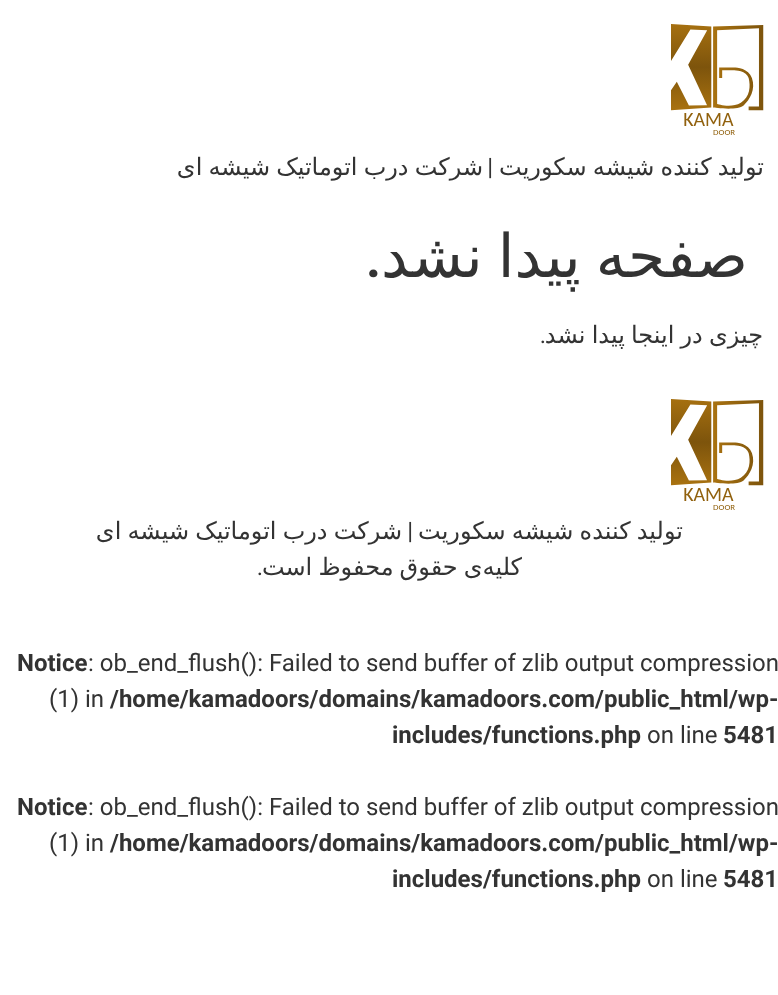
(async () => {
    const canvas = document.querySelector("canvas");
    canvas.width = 778;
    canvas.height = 995;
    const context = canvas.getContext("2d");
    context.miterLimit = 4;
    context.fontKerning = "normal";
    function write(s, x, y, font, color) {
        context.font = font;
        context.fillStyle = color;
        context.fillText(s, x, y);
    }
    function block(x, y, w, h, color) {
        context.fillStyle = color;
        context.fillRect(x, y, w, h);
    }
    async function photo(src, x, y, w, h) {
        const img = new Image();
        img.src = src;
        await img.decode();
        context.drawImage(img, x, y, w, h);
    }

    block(0, 0, 778, 995, "rgb(255, 255, 255)");
    await photo("media/1.png", 671, 24, 93, 111);
    context.wordSpacing = "-1.5px";
    context.direction = "rtl";
    write("شرکت درب اتوماتیک شیشه ای", 483, 175, "24px DejaVu Sans", "rgb(51, 51, 51)");
    context.wordSpacing = "0px";
    write("|", 493, 175, "24px Roboto", "rgb(51, 51, 51)");
    context.wordSpacing = "-1.5px";
    write("تولید کننده شیشه سکوریت", 764, 175, "24px DejaVu Sans", "rgb(51, 51, 51)");
    context.wordSpacing = "0px";
    write(".", 382, 277, "500 60px Roboto", "rgb(51, 51, 51)");
    context.wordSpacing = "-4px";
    write("صفحه پیدا نشد", 748, 277, "60px DejaVu Sans", "rgb(51, 51, 51)");
    context.wordSpacing = "0px";
    write(".", 546, 343, "24px Roboto", "rgb(51, 51, 51)");
    context.wordSpacing = "-1.5px";
    write("چیزی در اینجا پیدا نشد", 763, 343, "24px DejaVu Sans", "rgb(51, 51, 51)");
    await photo("media/2.png", 671, 399, 93, 111);
    write("شرکت درب اتوماتیک شیشه ای", 402, 539, "24px DejaVu Sans", "rgb(51, 51, 51)");
    context.wordSpacing = "0px";
    write("|", 413, 539, "24px Roboto", "rgb(51, 51, 51)");
    context.wordSpacing = "-1.5px";
    write("تولید کننده شیشه سکوریت", 683, 539, "24px DejaVu Sans", "rgb(51, 51, 51)");
    context.wordSpacing = "0px";
    write(".", 263, 575, "24px Roboto", "rgb(51, 51, 51)");
    context.wordSpacing = "-1.5px";
    write("کلیه‌ی حقوق محفوظ است", 522, 575, "24px DejaVu Sans", "rgb(51, 51, 51)");
    context.wordSpacing = "0px";
    context.direction = "ltr";
    write("Notice", 17, 671, "bold 24px Roboto", "rgb(51, 51, 51)");
    write(": ob_end_flush(): Failed to send buffer of zlib output compression", 88, 671, "24px Roboto", "rgb(51, 51, 51)");
    write("(1) in", 49, 707, "24px Roboto", "rgb(51, 51, 51)");
    write("/home/kamadoors/domains/kamadoors.com/public_html/wp-", 110, 707, "bold 24px Roboto", "rgb(51, 51, 51)");
    write("includes/functions.php", 392, 743, "bold 24px Roboto", "rgb(51, 51, 51)");
    write("on line", 647, 743, "24px Roboto", "rgb(51, 51, 51)");
    write("5481", 723, 743, "bold 24px Roboto", "rgb(51, 51, 51)");
    write("Notice", 17, 815, "bold 24px Roboto", "rgb(51, 51, 51)");
    write(": ob_end_flush(): Failed to send buffer of zlib output compression", 88, 815, "24px Roboto", "rgb(51, 51, 51)");
    write("(1) in", 49, 851, "24px Roboto", "rgb(51, 51, 51)");
    write("/home/kamadoors/domains/kamadoors.com/public_html/wp-", 110, 851, "bold 24px Roboto", "rgb(51, 51, 51)");
    write("includes/functions.php", 392, 887, "bold 24px Roboto", "rgb(51, 51, 51)");
    write("on line", 647, 887, "24px Roboto", "rgb(51, 51, 51)");
    write("5481", 723, 887, "bold 24px Roboto", "rgb(51, 51, 51)");
})();
